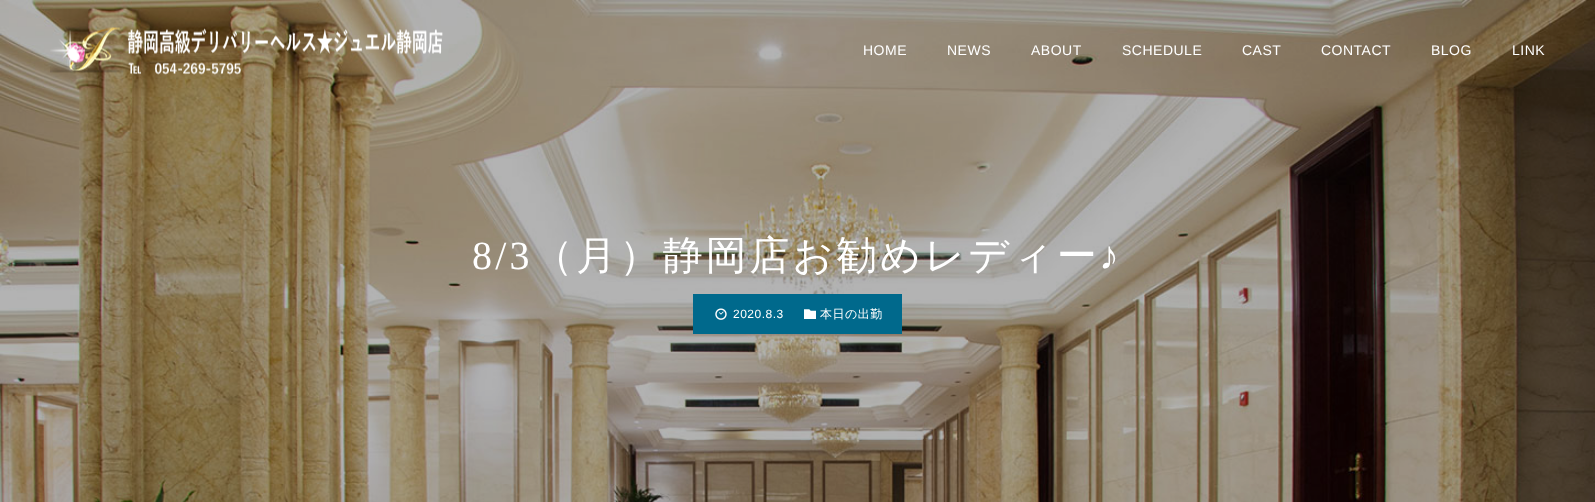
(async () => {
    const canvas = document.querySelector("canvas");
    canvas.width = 1595;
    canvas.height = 502;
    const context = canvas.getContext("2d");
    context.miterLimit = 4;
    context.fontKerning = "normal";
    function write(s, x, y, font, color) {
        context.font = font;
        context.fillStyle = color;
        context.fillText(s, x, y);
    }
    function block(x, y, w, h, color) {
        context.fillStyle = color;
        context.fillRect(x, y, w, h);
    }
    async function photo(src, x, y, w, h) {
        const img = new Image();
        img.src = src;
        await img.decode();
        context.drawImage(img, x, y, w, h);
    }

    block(0, 0, 1595, 502, "rgb(255, 255, 255)");
    await photo("media/1.png", 0, 0, 1595, 502);
    await photo("media/2.png", 50, 27, 393, 48);
    context.letterSpacing = "0.5px";
    write("HOME", 863, 55, "14px Liberation Sans", "rgb(255, 255, 255)");
    write("NEWS", 947, 55, "14px Liberation Sans", "rgb(255, 255, 255)");
    write("ABOUT", 1031, 55, "14px Liberation Sans", "rgb(255, 255, 255)");
    write("SCHEDULE", 1122, 55, "14px Liberation Sans", "rgb(255, 255, 255)");
    write("CAST", 1242, 55, "14px Liberation Sans", "rgb(255, 255, 255)");
    write("CONTACT", 1321, 55, "14px Liberation Sans", "rgb(255, 255, 255)");
    write("BLOG", 1431, 55, "14px Liberation Sans", "rgb(255, 255, 255)");
    write("LINK", 1512, 55, "14px Liberation Sans", "rgb(255, 255, 255)");
    context.letterSpacing = "3.25px";
    write("8/3", 472, 269, "40px Liberation Serif", "rgb(255, 255, 255)");
    write("（月）静岡店お勧めレディー", 533, 269, "500 40px WenQuanYi Zen Hei", "rgb(255, 255, 255)");
    write("♪", 1099, 269, "40px Liberation Serif", "rgb(255, 255, 255)");
    block(693, 294, 209, 40, "rgb(0, 105, 140)");
    await photo("media/3.png", 715, 308, 12, 12);
    context.letterSpacing = "0.5px";
    write("2020.8.3", 733, 318, "12px Liberation Sans", "rgb(255, 255, 255)");
    await photo("media/4.png", 804, 309, 12, 10);
    write("本日の出勤", 820, 318, "500 12px WenQuanYi Zen Hei", "rgb(255, 255, 255)");
})();
